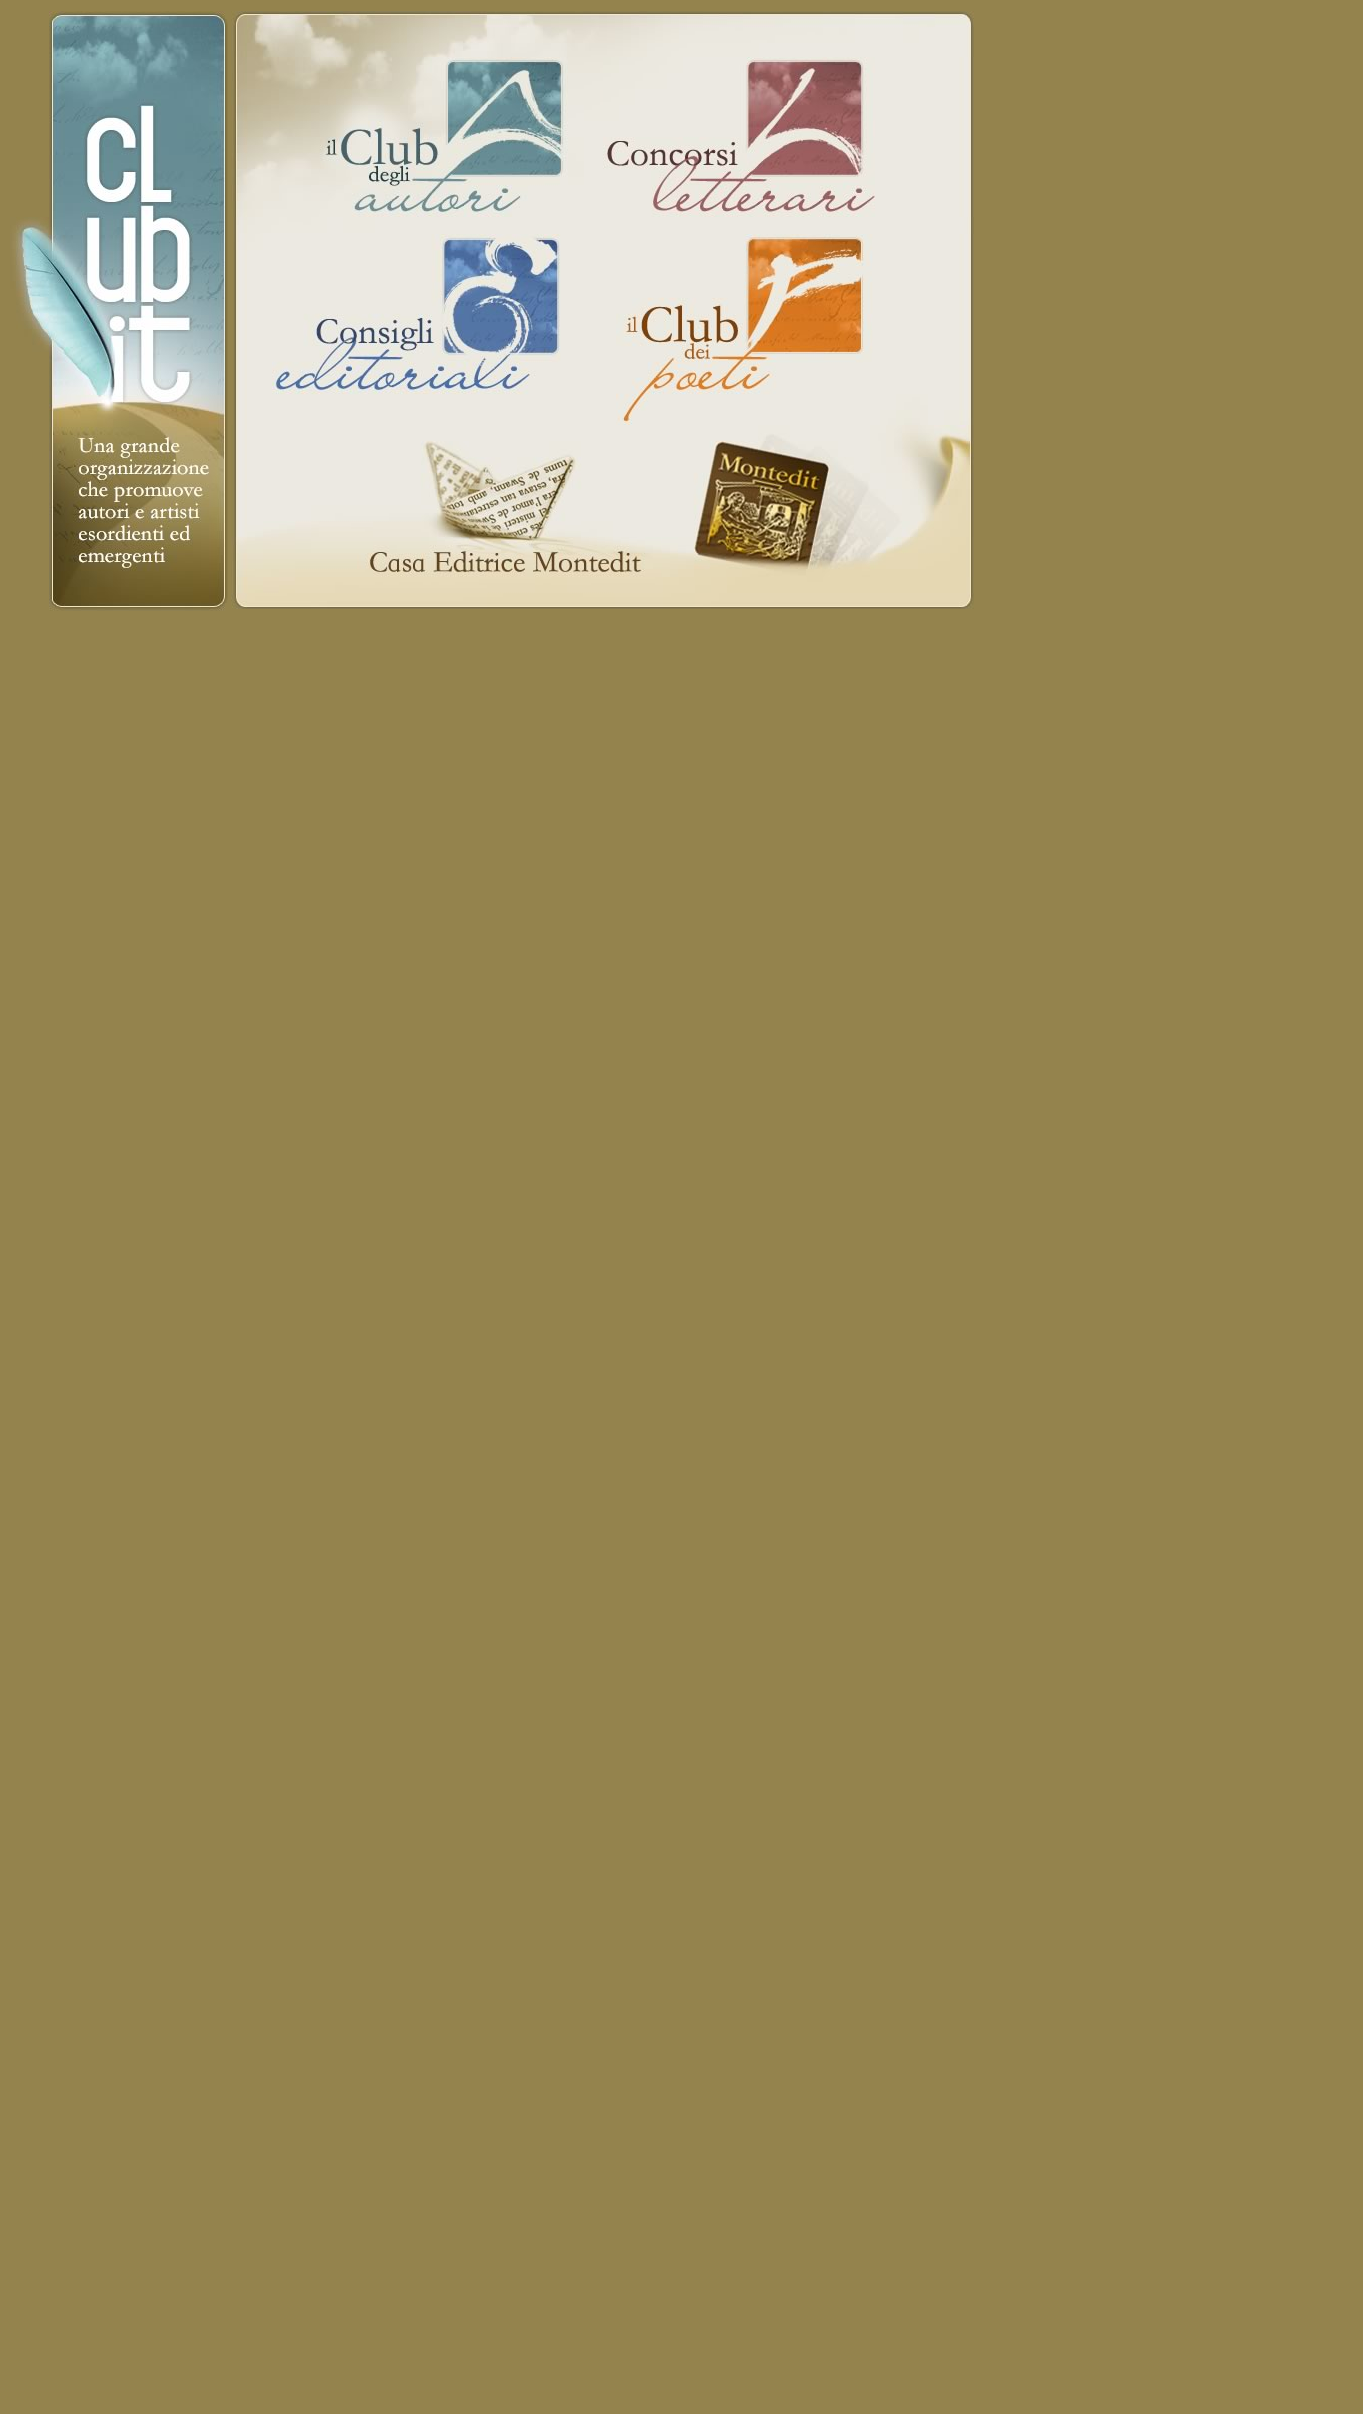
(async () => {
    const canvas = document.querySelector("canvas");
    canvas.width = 1363;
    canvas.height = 2414;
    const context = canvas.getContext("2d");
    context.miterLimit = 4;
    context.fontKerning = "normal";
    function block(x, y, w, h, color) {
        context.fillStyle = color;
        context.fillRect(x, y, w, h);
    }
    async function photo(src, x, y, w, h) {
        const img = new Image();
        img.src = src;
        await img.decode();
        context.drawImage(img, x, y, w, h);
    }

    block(0, 0, 1363, 2414, "rgb(148, 131, 77)");
    await photo("media/1.png", 49, 11, 179, 600);
    await photo("media/2.png", 231, 11, 743, 46);
    await photo("media/3.png", 231, 57, 89, 160);
    await photo("media/4.png", 320, 57, 248, 160);
    await photo("media/5.png", 568, 57, 35, 160);
    await photo("media/6.png", 603, 57, 277, 160);
    await photo("media/7.png", 880, 57, 94, 160);
    await photo("media/8.png", 10, 217, 39, 135);
    await photo("media/9.png", 233, 217, 741, 17);
    await photo("media/10.png", 233, 234, 39, 191);
    await photo("media/11.png", 272, 234, 296, 191);
    block(568, 234, 48, 191, "rgb(236, 233, 226)");
    await photo("media/12.png", 616, 234, 264, 191);
    await photo("media/13.png", 880, 234, 94, 191);
    await photo("media/14.png", 231, 425, 126, 152);
    await photo("media/15.png", 357, 425, 305, 152);
    await photo("media/16.png", 662, 425, 312, 152);
    await photo("media/17.png", 231, 577, 743, 32);
})();
